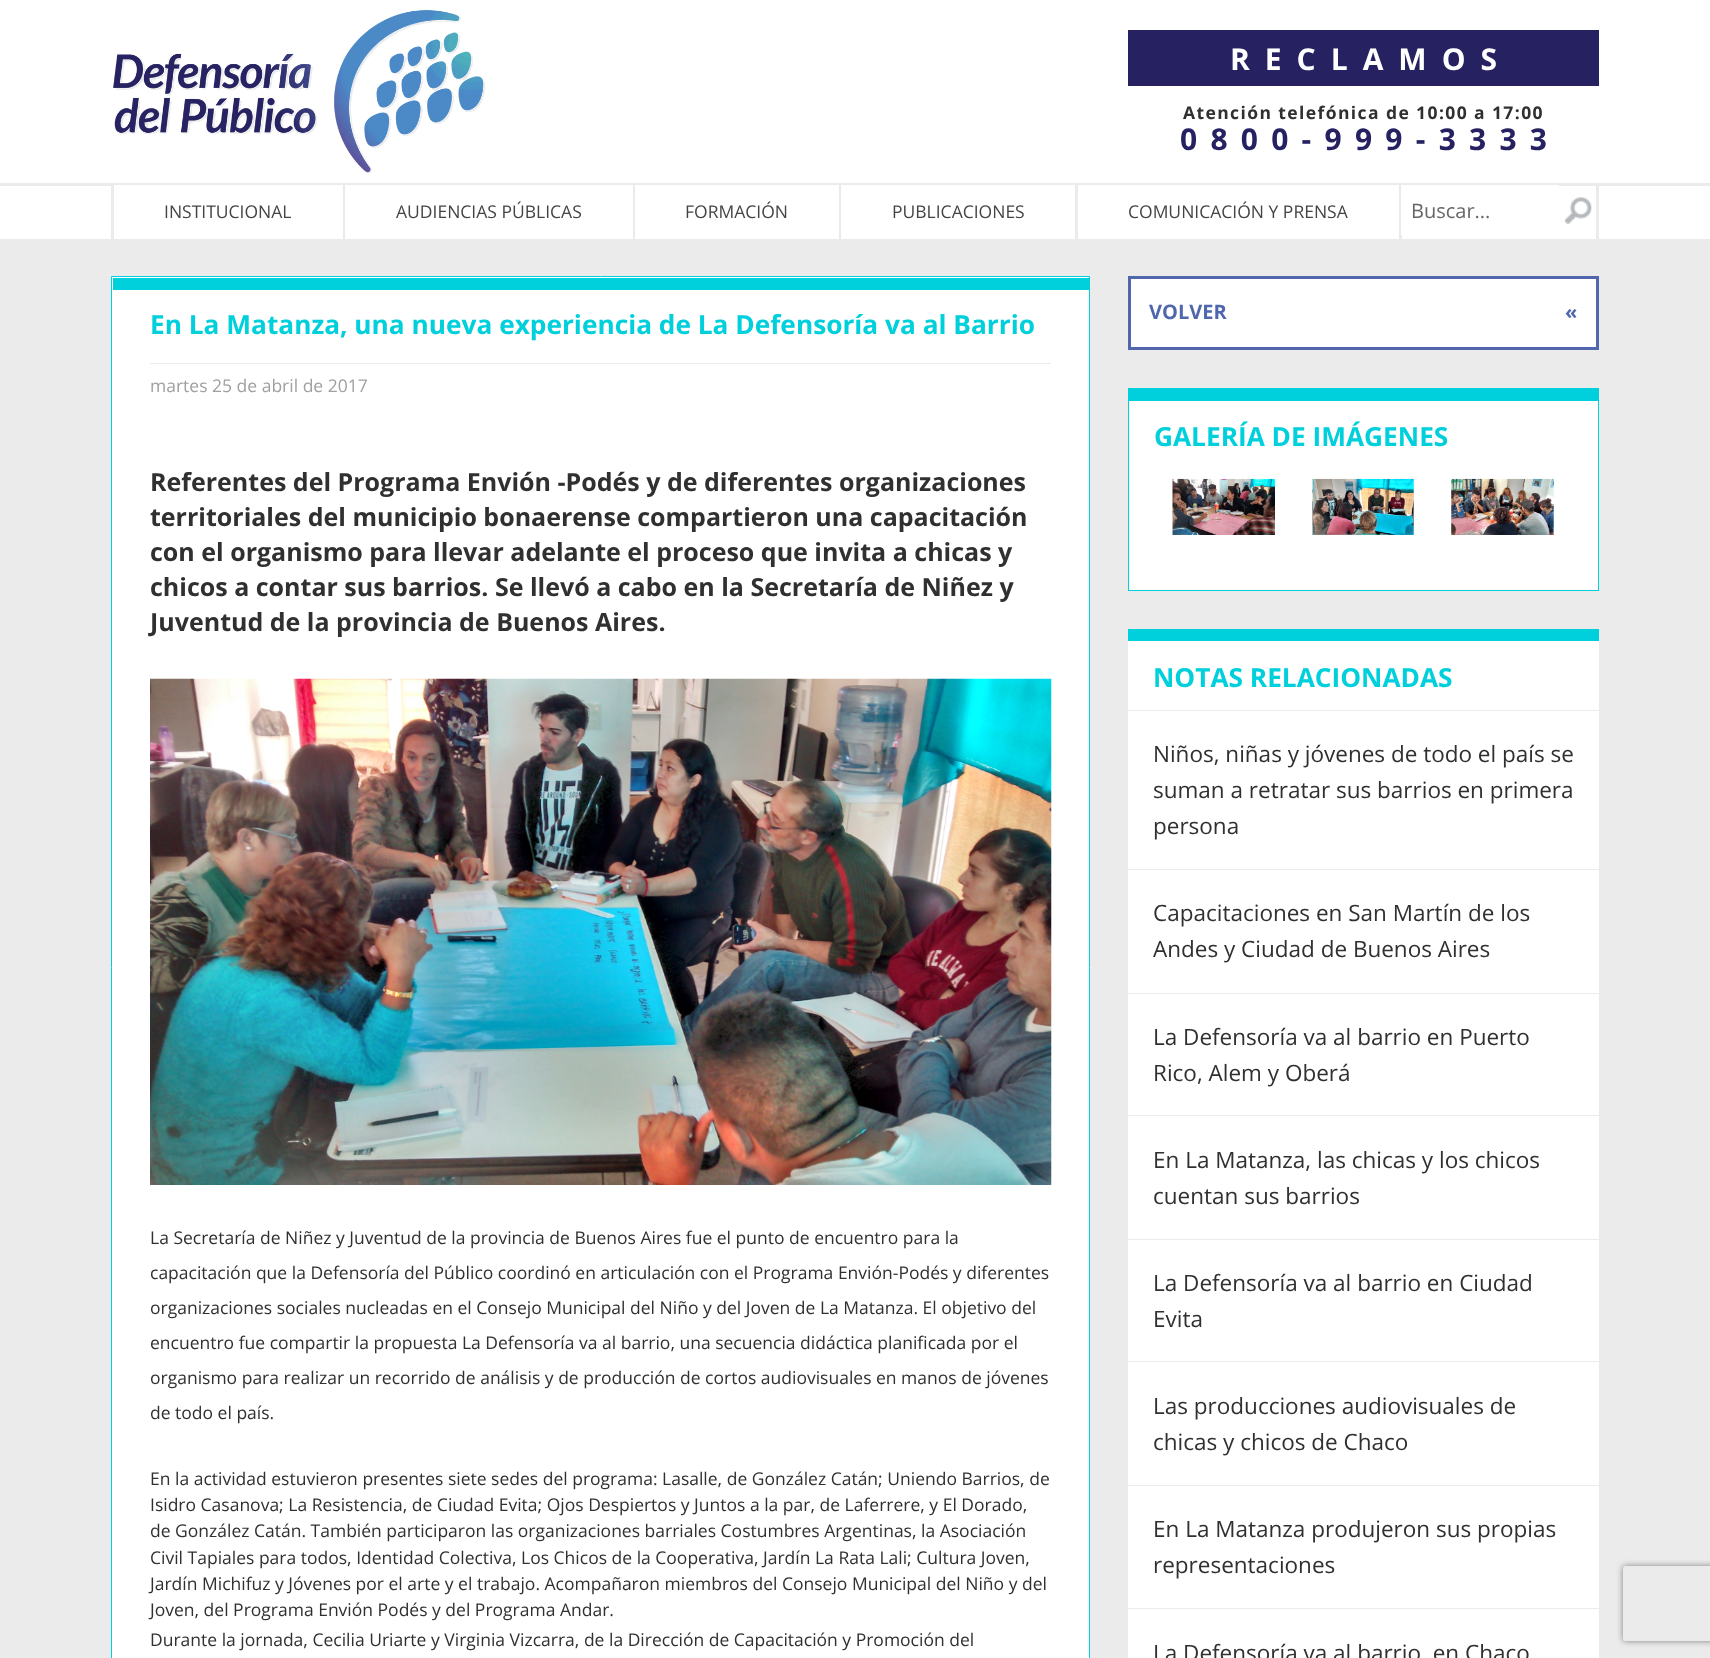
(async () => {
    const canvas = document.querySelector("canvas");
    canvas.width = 1710;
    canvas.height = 1658;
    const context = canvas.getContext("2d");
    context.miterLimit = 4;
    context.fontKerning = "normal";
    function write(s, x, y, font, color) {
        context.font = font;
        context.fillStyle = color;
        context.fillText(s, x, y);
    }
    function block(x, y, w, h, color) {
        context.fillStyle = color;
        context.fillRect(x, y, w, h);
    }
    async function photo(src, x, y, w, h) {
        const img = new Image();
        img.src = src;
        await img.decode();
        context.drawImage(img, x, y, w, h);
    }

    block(0, 0, 1710, 1658, "rgb(236, 235, 235)");
    block(0, 0, 1710, 239, "rgb(255, 255, 255)");
    await photo("media/1.png", 113, 9, 373, 165);
    block(1128, 30, 471, 56, "rgb(38, 34, 98)");
    context.letterSpacing = "15px";
    write("RECLAMOS", 1230, 70, "bold 30px Open Sans", "rgb(255, 255, 255)");
    context.letterSpacing = "1.4px";
    write("Atención telefónica de 10:00 a 17:00", 1183, 119, "bold 17.5px Open Sans", "rgb(48, 48, 48)");
    context.letterSpacing = "13.25px";
    write("0800-999-3333", 1180, 150, "bold 30px Open Sans", "rgb(38, 34, 98)");
    block(0, 183, 1710, 3, "rgb(236, 235, 235)");
    block(111, 185, 3, 54, "rgb(236, 235, 235)");
    block(114, 185, 229, 1, "rgb(255, 255, 255)");
    context.letterSpacing = "0px";
    write("INSTITUCIONAL", 164, 218, "17.5px Open Sans", "rgb(68, 68, 68)");
    block(343, 185, 2, 54, "rgb(236, 235, 235)");
    block(345, 185, 288, 1, "rgb(255, 255, 255)");
    write("AUDIENCIAS PÚBLICAS", 396, 218, "17.5px Open Sans", "rgb(68, 68, 68)");
    block(633, 185, 2, 54, "rgb(236, 235, 235)");
    block(635, 185, 204, 1, "rgb(255, 255, 255)");
    write("FORMACIÓN", 685, 218, "17.5px Open Sans", "rgb(68, 68, 68)");
    block(839, 185, 2, 54, "rgb(236, 235, 235)");
    block(841, 185, 234, 1, "rgb(255, 255, 255)");
    write("PUBLICACIONES", 892, 218, "17.5px Open Sans", "rgb(68, 68, 68)");
    block(1075, 185, 3, 54, "rgb(236, 235, 235)");
    block(1078, 185, 321, 1, "rgb(255, 255, 255)");
    write("COMUNICACIÓN Y PRENSA", 1128, 218, "17.5px Open Sans", "rgb(68, 68, 68)");
    block(1596, 185, 3, 54, "rgb(236, 235, 235)");
    block(1399, 185, 3, 54, "rgb(236, 235, 235)");
    block(1401, 185, 158, 50, "rgb(255, 255, 255)");
    write("Buscar...", 1411, 218, "20px Open Sans", "rgb(102, 102, 102)");
    await photo("media/2.png", 1565, 197, 27, 27);
    context.fillStyle = "rgb(255, 255, 255)";
    context.beginPath();
    context.rect(111.5, 276.5, 978, 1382);
    context.fill();
    context.strokeStyle = "rgb(0, 207, 220)";
    context.stroke();
    block(113, 278, 976, 12, "rgb(0, 207, 220)");
    write("En La Matanza, una nueva experiencia de La Defensoría va al Barrio", 150, 334, "bold 26.25px Open Sans", "rgb(0, 207, 220)");
    block(150, 363, 901, 1, "rgb(236, 235, 235)");
    write("martes 25 de abril de 2017", 150, 392, "17.5px Open Sans", "rgb(160, 160, 160)");
    write("Referentes del Programa Envión -Podés y de diferentes organizaciones", 150, 491, "bold 25px Open Sans", "rgb(48, 48, 48)");
    write("territoriales del municipio bonaerense compartieron una capacitación", 150, 526, "bold 25px Open Sans", "rgb(48, 48, 48)");
    write("con el organismo para llevar adelante el proceso que invita a chicas y", 150, 561, "bold 25px Open Sans", "rgb(48, 48, 48)");
    write("chicos a contar sus barrios. Se llevó a cabo en la Secretaría de Niñez y", 150, 596, "bold 25px Open Sans", "rgb(48, 48, 48)");
    write("Juventud de la provincia de Buenos Aires.", 150, 631, "bold 25px Open Sans", "rgb(48, 48, 48)");
    await photo("media/3.png", 150, 678, 902, 507);
    write("La Secretaría de Niñez y Juventud de la provincia de Buenos Aires fue el punto de encuentro para la", 150, 1244, "17.5px Open Sans", "rgb(48, 48, 48)");
    write("capacitación que la Defensoría del Público coordinó en articulación con el Programa Envión-Podés y diferentes", 150, 1279, "17.5px Open Sans", "rgb(48, 48, 48)");
    write("organizaciones sociales nucleadas en el Consejo Municipal del Niño y del Joven de La Matanza. El objetivo del", 150, 1314, "17.5px Open Sans", "rgb(48, 48, 48)");
    write("encuentro fue compartir la propuesta La Defensoría va al barrio, una secuencia didáctica planificada por el", 150, 1349, "17.5px Open Sans", "rgb(48, 48, 48)");
    write("organismo para realizar un recorrido de análisis y de producción de cortos audiovisuales en manos de jóvenes", 150, 1384, "17.5px Open Sans", "rgb(48, 48, 48)");
    write("de todo el país.", 150, 1419, "17.5px Open Sans", "rgb(48, 48, 48)");
    write("En la actividad estuvieron presentes siete sedes del programa: Lasalle, de González Catán; Uniendo Barrios, de", 150, 1485, "17.5px Open Sans", "rgb(48, 48, 48)");
    write("Isidro Casanova; La Resistencia, de Ciudad Evita; Ojos Despiertos y Juntos a la par, de Laferrere, y El Dorado,", 150, 1511, "17.5px Open Sans", "rgb(48, 48, 48)");
    write("de González Catán. También participaron las organizaciones barriales Costumbres Argentinas, la Asociación", 150, 1537, "17.5px Open Sans", "rgb(48, 48, 48)");
    write("Civil Tapiales para todos, Identidad Colectiva, Los Chicos de la Cooperativa, Jardín La Rata Lali; Cultura Joven,", 150, 1564, "17.5px Open Sans", "rgb(48, 48, 48)");
    write("Jardín Michifuz y Jóvenes por el arte y el trabajo. Acompañaron miembros del Consejo Municipal del Niño y del", 150, 1590, "17.5px Open Sans", "rgb(48, 48, 48)");
    write("Joven, del Programa Envión Podés y del Programa Andar.", 150, 1616, "17.5px Open Sans", "rgb(48, 48, 48)");
    write("Durante la jornada, Cecilia Uriarte y Virginia Vizcarra, de la Dirección de Capacitación y Promoción del", 150, 1646, "17.5px Open Sans", "rgb(48, 48, 48)");
    context.fillStyle = "rgb(255, 255, 255)";
    context.beginPath();
    context.rect(1129.5, 277.5, 468, 71);
    context.fill();
    context.strokeStyle = "rgb(80, 103, 174)";
    context.lineWidth = 3;
    context.stroke();
    write("VOLVER", 1149, 319, "bold 20px Open Sans", "rgb(80, 103, 174)");
    write("«", 1565, 319, "bold 20px Open Sans", "rgb(80, 103, 174)");
    block(1129, 401, 469, 189, "rgb(255, 255, 255)");
    context.strokeStyle = "rgb(0, 207, 220)";
    context.lineWidth = 1;
    context.strokeRect(1128.5, 388.5, 470, 202);
    block(1129, 389, 469, 12, "rgb(0, 207, 220)");
    write("GALERÍA DE IMÁGENES", 1154, 446, "bold 26.25px Open Sans", "rgb(0, 207, 220)");
    await photo("media/4.png", 1172, 478, 103, 57);
    await photo("media/5.png", 1312, 478, 102, 57);
    await photo("media/6.png", 1451, 478, 103, 57);
    block(1128, 641, 471, 1017, "rgb(255, 255, 255)");
    block(1128, 629, 471, 12, "rgb(0, 207, 220)");
    write("NOTAS RELACIONADAS", 1153, 687, "bold 26.25px Open Sans", "rgb(0, 207, 220)");
    block(1128, 710, 471, 1, "rgb(236, 235, 235)");
    write("Niños, niñas y jóvenes de todo el país se", 1153, 762, "22.5px Open Sans", "rgb(48, 48, 48)");
    write("suman a retratar sus barrios en primera", 1153, 798, "22.5px Open Sans", "rgb(48, 48, 48)");
    write("persona", 1153, 834, "22.5px Open Sans", "rgb(48, 48, 48)");
    block(1128, 869, 471, 1, "rgb(236, 235, 235)");
    write("Capacitaciones en San Martín de los", 1153, 921, "22.5px Open Sans", "rgb(48, 48, 48)");
    write("Andes y Ciudad de Buenos Aires", 1153, 957, "22.5px Open Sans", "rgb(48, 48, 48)");
    block(1128, 993, 471, 1, "rgb(236, 235, 235)");
    write("La Defensoría va al barrio en Puerto", 1153, 1045, "22.5px Open Sans", "rgb(48, 48, 48)");
    write("Rico, Alem y Oberá", 1153, 1081, "22.5px Open Sans", "rgb(48, 48, 48)");
    block(1128, 1115, 471, 1, "rgb(236, 235, 235)");
    write("En La Matanza, las chicas y los chicos", 1153, 1168, "22.5px Open Sans", "rgb(48, 48, 48)");
    write("cuentan sus barrios", 1153, 1204, "22.5px Open Sans", "rgb(48, 48, 48)");
    block(1128, 1239, 471, 1, "rgb(236, 235, 235)");
    write("La Defensoría va al barrio en Ciudad", 1153, 1291, "22.5px Open Sans", "rgb(48, 48, 48)");
    write("Evita", 1153, 1327, "22.5px Open Sans", "rgb(48, 48, 48)");
    block(1128, 1361, 471, 1, "rgb(236, 235, 235)");
    write("Las producciones audiovisuales de", 1153, 1414, "22.5px Open Sans", "rgb(48, 48, 48)");
    write("chicas y chicos de Chaco", 1153, 1450, "22.5px Open Sans", "rgb(48, 48, 48)");
    block(1128, 1485, 471, 1, "rgb(236, 235, 235)");
    write("En La Matanza produjeron sus propias", 1153, 1537, "22.5px Open Sans", "rgb(48, 48, 48)");
    write("representaciones", 1153, 1573, "22.5px Open Sans", "rgb(48, 48, 48)");
    block(1128, 1608, 471, 1, "rgb(236, 235, 235)");
    write("La Defensoría va al barrio, en Chaco", 1153, 1661, "22.5px Open Sans", "rgb(48, 48, 48)");
    context.save();
    context.beginPath();
    context.moveTo(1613, 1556);
    context.lineTo(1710, 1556);
    context.lineTo(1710, 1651);
    context.lineTo(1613, 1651);
    context.closePath();
    context.moveTo(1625.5, 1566);
    context.lineTo(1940.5, 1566);
    context.bezierCurveTo(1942, 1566, 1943, 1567, 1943, 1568.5);
    context.lineTo(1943, 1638.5);
    context.bezierCurveTo(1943, 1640, 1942, 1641, 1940.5, 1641);
    context.lineTo(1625.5, 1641);
    context.bezierCurveTo(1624, 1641, 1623, 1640, 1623, 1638.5);
    context.lineTo(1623, 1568.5);
    context.bezierCurveTo(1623, 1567, 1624, 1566, 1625.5, 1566);
    context.closePath();
    context.clip("evenodd");
    context.fillStyle = "rgb(128, 128, 128)";
    context.filter = "blur(3px)";
    context.beginPath();
    context.roundRect(1623, 1566, 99, 75, 2.5);
    context.fill();
    context.filter = "none";
    context.restore();
})();
